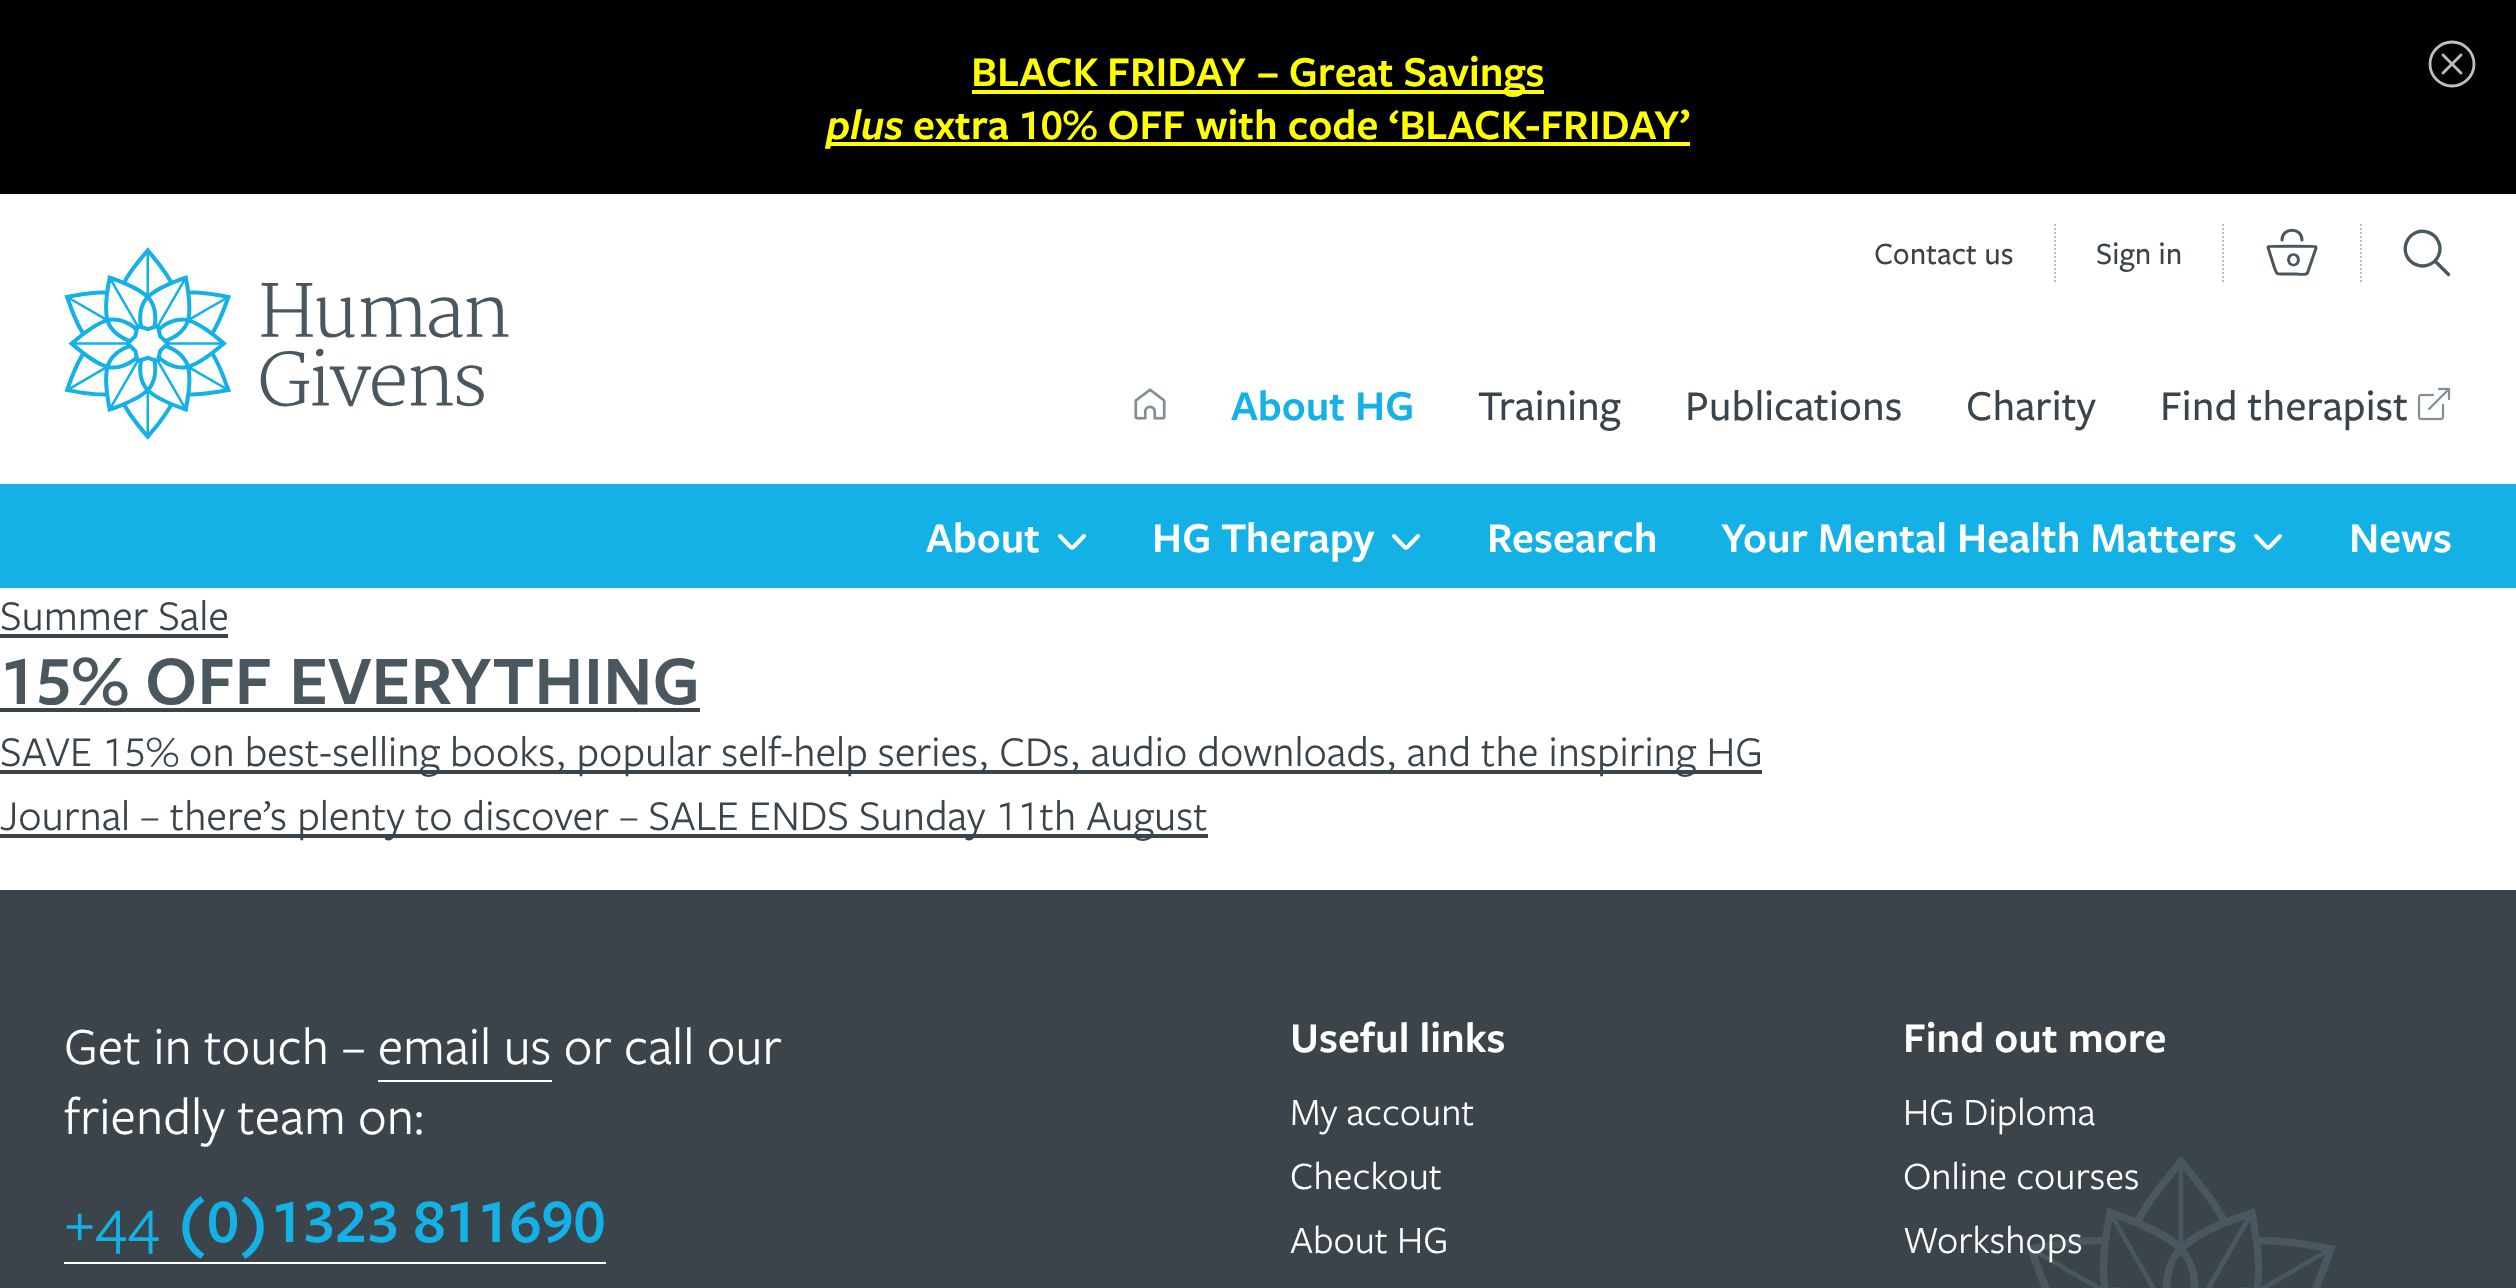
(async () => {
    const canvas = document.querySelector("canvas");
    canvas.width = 2516;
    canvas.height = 1288;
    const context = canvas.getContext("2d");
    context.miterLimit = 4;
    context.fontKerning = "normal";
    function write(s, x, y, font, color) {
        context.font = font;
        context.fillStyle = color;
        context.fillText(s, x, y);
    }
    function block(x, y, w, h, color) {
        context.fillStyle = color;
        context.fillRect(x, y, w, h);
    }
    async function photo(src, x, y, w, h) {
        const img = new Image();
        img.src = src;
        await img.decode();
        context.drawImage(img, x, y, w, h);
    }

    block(0, 0, 2516, 1288, "rgb(255, 255, 255)");
    block(0, 0, 2516, 194, "rgb(0, 0, 0)");
    block(972, 90, 572, 4, "rgb(255, 255, 0)");
    write("BLACK FRIDAY – Great Savings", 971, 86, "600 44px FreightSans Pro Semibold", "rgb(255, 255, 0)");
    block(826, 142, 76, 4, "rgb(255, 255, 0)");
    write("plus", 826, 139, "italic 600 44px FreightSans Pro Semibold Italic", "rgb(255, 255, 0)");
    block(902, 142, 788, 4, "rgb(255, 255, 0)");
    write("extra 10% OFF with code ‘BLACK-FRIDAY’", 913, 139, "600 44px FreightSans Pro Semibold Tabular", "rgb(255, 255, 0)");
    context.beginPath();
    context.arc(2452, 64, 22, 0, Math.PI * 2);
    context.strokeStyle = "rgb(191, 191, 191)";
    context.lineWidth = 2.8;
    context.stroke();
    context.beginPath();
    context.moveTo(2443, 73);
    context.lineTo(2461, 55);
    context.moveTo(2461, 73);
    context.lineTo(2443, 55);
    context.lineCap = "round";
    context.lineJoin = "round";
    context.stroke();
    context.beginPath();
    context.moveTo(2055, 224);
    context.lineTo(2055, 284);
    context.strokeStyle = "rgb(181, 191, 197)";
    context.lineWidth = 2;
    context.lineCap = "butt";
    context.lineJoin = "miter";
    context.setLineDash([2, 2]);
    context.stroke();
    write("Contact us", 1874, 264, "500 32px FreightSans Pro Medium", "rgb(58, 68, 74)");
    context.beginPath();
    context.moveTo(2223, 224);
    context.lineTo(2223, 284);
    context.stroke();
    write("Sign in", 2096, 264, "500 32px FreightSans Pro Medium", "rgb(58, 68, 74)");
    context.beginPath();
    context.moveTo(2361, 224);
    context.lineTo(2361, 284);
    context.stroke();
    context.beginPath();
    context.moveTo(2302, 240);
    context.bezierCurveTo(2302, 227, 2282, 227, 2282, 240);
    context.strokeStyle = "rgb(74, 87, 95)";
    context.lineWidth = 3;
    context.lineCap = "round";
    context.lineJoin = "round";
    context.setLineDash([]);
    context.stroke();
    context.beginPath();
    context.moveTo(2316, 248);
    context.lineTo(2307.5, 273);
    context.bezierCurveTo(2305.5, 275.5, 2299, 274, 2296.5, 274);
    context.lineTo(2283, 274);
    context.bezierCurveTo(2276, 274, 2277, 274.5, 2274.5, 268);
    context.lineTo(2268, 247.5);
    context.lineTo(2268.5, 246.5);
    context.bezierCurveTo(2269.5, 246, 2314.5, 246, 2315.5, 246.5);
    context.closePath();
    context.lineCap = "butt";
    context.lineJoin = "miter";
    context.stroke();
    write("0", 2286, 266, "600 26px FreightSans Pro Semibold", "rgb(74, 87, 95)");
    context.beginPath();
    context.moveTo(2416, 232.5);
    context.bezierCurveTo(2424.5, 229, 2435, 233, 2438.5, 242);
    context.bezierCurveTo(2442.5, 250.5, 2438, 261, 2429.5, 264.5);
    context.bezierCurveTo(2420.5, 268.5, 2410.5, 264, 2406.5, 255.5);
    context.bezierCurveTo(2403, 246.5, 2407, 236.5, 2416, 232.5);
    context.closePath();
    context.moveTo(2435, 261);
    context.lineTo(2448.5, 274.5);
    context.lineWidth = 3.4;
    context.lineCap = "round";
    context.lineJoin = "round";
    context.stroke();
    await photo("media/1.png", 64, 247, 445, 193);
    await photo("media/2.png", 1134, 388, 32, 32);
    write("About HG", 1231, 420, "600 44px FreightSans Pro Semibold", "rgb(20, 177, 231)");
    block(0, 484, 2516, 104, "rgb(20, 177, 231)");
    context.beginPath();
    context.moveTo(1084, 536);
    context.lineTo(1074.5, 546);
    context.bezierCurveTo(1071.5, 548.5, 1072.5, 548.5, 1069.5, 546);
    context.lineTo(1060, 536);
    context.strokeStyle = "rgb(255, 255, 255)";
    context.lineWidth = 4;
    context.stroke();
    write("About", 926, 552, "600 44px FreightSans Pro Semibold", "rgb(255, 255, 255)");
    context.beginPath();
    context.moveTo(1418, 536);
    context.lineTo(1408.5, 546);
    context.bezierCurveTo(1405.5, 548.5, 1406.5, 548.5, 1403.5, 546);
    context.lineTo(1394, 536);
    context.stroke();
    write("HG Therapy", 1152, 552, "600 44px FreightSans Pro Semibold", "rgb(255, 255, 255)");
    write("Research", 1487, 552, "600 44px FreightSans Pro Semibold", "rgb(255, 255, 255)");
    context.beginPath();
    context.moveTo(2280, 536);
    context.lineTo(2270.5, 546);
    context.bezierCurveTo(2267.5, 548.5, 2268.5, 548.5, 2265.5, 546);
    context.lineTo(2256, 536);
    context.stroke();
    write("Your Mental Health Matters", 1721, 552, "600 44px FreightSans Pro Semibold", "rgb(255, 255, 255)");
    write("News", 2349, 552, "600 44px FreightSans Pro Semibold", "rgb(255, 255, 255)");
    write("Training", 1478, 420, "500 44px FreightSans Pro Medium", "rgb(58, 68, 74)");
    write("Publications", 1685, 420, "500 44px FreightSans Pro Medium", "rgb(58, 68, 74)");
    write("Charity", 1966, 420, "500 44px FreightSans Pro Medium", "rgb(58, 68, 74)");
    write("Find therapist", 2160, 420, "500 44px FreightSans Pro Medium", "rgb(58, 68, 74)");
    await photo("media/3.png", 2417, 387, 34, 34);
    write("Summer Sale", 0, 630, "44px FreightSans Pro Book", "rgb(58, 68, 74)");
    block(0, 634, 228, 4, "rgb(58, 68, 74)");
    write("15% OFF EVERYTHING", 0, 704, "600 72px FreightSans Pro Semibold Tabular", "rgb(74, 87, 95)");
    block(0, 708, 700, 4, "rgb(58, 68, 74)");
    block(0, 770, 1762, 4, "rgb(58, 68, 74)");
    write("SAVE 15% on best-selling books, popular self-help series, CDs, audio downloads, and the inspiring HG", 0, 766, "44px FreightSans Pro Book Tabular", "rgb(58, 68, 74)");
    block(0, 834, 1208, 4, "rgb(58, 68, 74)");
    write("Journal – there’s plenty to discover – SALE ENDS Sunday 11th August", 0, 830, "44px FreightSans Pro Book Tabular", "rgb(58, 68, 74)");
    block(0, 890, 2516, 398, "rgb(58, 68, 74)");
    await photo("media/4.png", 2026, 1156, 310, 132);
    write("Get in touch – email us or call our", 64, 1064, "54px FreightSans Pro Book", "rgb(255, 255, 255)");
    block(378, 1080, 174, 2, "rgb(255, 255, 255)");
    write("friendly team on:", 64, 1134, "54px FreightSans Pro Book", "rgb(255, 255, 255)");
    write("+44", 64, 1242, "64px FreightSans Pro Book", "rgb(20, 177, 231)");
    block(64, 1262, 542, 2, "rgb(255, 255, 255)");
    write("(0)1323 811690", 175, 1242, "600 64px FreightSans Pro Semibold Tabular", "rgb(20, 177, 231)");
    write("Useful links", 1290, 1052, "600 44px FreightSans Pro Semibold", "rgb(255, 255, 255)");
    write("My account", 1290, 1125, "40px FreightSans Pro Book", "rgb(255, 255, 255)");
    write("Checkout", 1290, 1189, "40px FreightSans Pro Book", "rgb(255, 255, 255)");
    write("About HG", 1290, 1253, "40px FreightSans Pro Book", "rgb(255, 255, 255)");
    write("Find out more", 1903, 1052, "600 44px FreightSans Pro Semibold", "rgb(255, 255, 255)");
    write("HG Diploma", 1903, 1125, "40px FreightSans Pro Book", "rgb(255, 255, 255)");
    write("Online courses", 1903, 1189, "40px FreightSans Pro Book", "rgb(255, 255, 255)");
    write("Workshops", 1903, 1253, "40px FreightSans Pro Book", "rgb(255, 255, 255)");
})();
